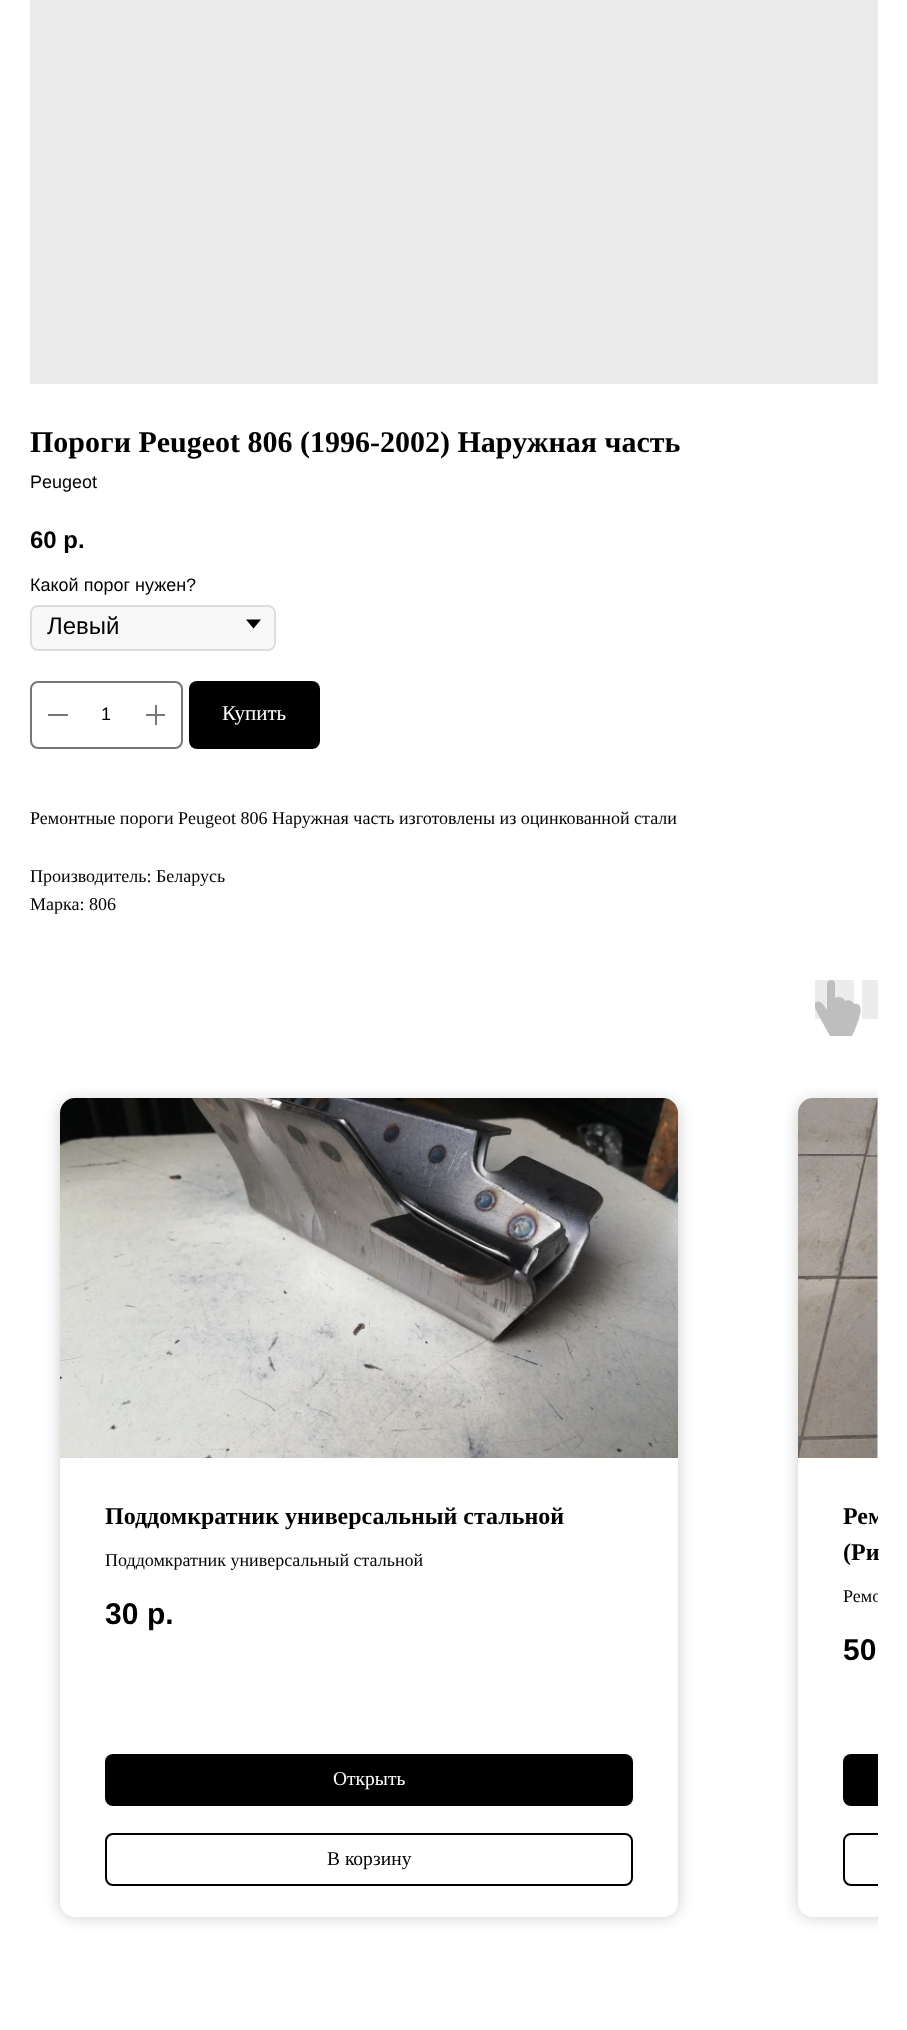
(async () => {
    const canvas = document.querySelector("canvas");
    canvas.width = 907;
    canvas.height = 2030;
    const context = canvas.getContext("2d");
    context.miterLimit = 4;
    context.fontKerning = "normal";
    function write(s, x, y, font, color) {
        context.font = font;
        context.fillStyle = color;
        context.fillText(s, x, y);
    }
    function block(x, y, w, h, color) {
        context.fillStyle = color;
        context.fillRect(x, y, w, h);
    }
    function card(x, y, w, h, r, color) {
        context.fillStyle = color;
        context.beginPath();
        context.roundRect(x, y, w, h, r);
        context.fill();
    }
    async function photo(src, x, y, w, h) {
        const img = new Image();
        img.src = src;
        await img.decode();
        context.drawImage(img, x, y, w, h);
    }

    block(0, 0, 907, 2030, "rgb(255, 255, 255)");
    block(30, 0, 848, 384, "rgb(235, 235, 235)");
    write("Пороги Peugeot 806 (1996-2002) Наружная часть", 30, 452, "bold 30px Liberation Serif", "rgb(0, 0, 0)");
    write("Peugeot", 30, 488, "18px Liberation Sans", "rgb(0, 0, 0)");
    write("60 р.", 30, 548, "bold 24px Liberation Sans", "rgb(0, 0, 0)");
    write("Какой порог нужен?", 30, 591, "18px Liberation Sans", "rgb(0, 0, 0)");
    context.fillStyle = "rgb(248, 248, 248)";
    context.beginPath();
    context.roundRect(31, 606, 244, 44, 7);
    context.fill();
    context.strokeStyle = "rgb(221, 221, 221)";
    context.lineWidth = 2;
    context.stroke();
    write("Левый", 47, 634, "24px Liberation Sans", "rgb(0, 0, 0)");
    context.beginPath();
    context.moveTo(246, 619.5);
    context.lineTo(261, 619.5);
    context.lineTo(253.5, 628.5);
    context.closePath();
    context.fill();
    context.beginPath();
    context.roundRect(31, 682, 151, 66, 7);
    context.strokeStyle = "rgb(119, 119, 119)";
    context.stroke();
    block(48, 714, 20, 2, "rgb(119, 119, 119)");
    write("1", 101, 720, "18px Liberation Sans", "rgb(0, 0, 0)");
    block(155, 705, 2, 20, "rgb(119, 119, 119)");
    block(146, 714, 19, 2, "rgb(119, 119, 119)");
    card(189, 681, 131, 68, 8, "rgb(0, 0, 0)");
    write("Купить", 222, 720, "21px Liberation Serif", "rgb(255, 255, 255)");
    write("Ремонтные пороги Peugeot 806 Наружная часть изготовлены из оцинкованной стали", 30, 824, "18px Liberation Serif", "rgb(0, 0, 0)");
    write("Производитель: Беларусь", 30, 882, "18px Liberation Serif", "rgb(0, 0, 0)");
    write("Марка: 806", 30, 910, "18px Liberation Serif", "rgb(0, 0, 0)");
    card(815, 980, 39, 39, 1, "rgb(236, 236, 236)");
    context.save();
    context.beginPath();
    context.rect(815, 978, 63, 63);
    context.clip();
    context.fillStyle = "rgb(190, 190, 190)";
    context.beginPath();
    context.moveTo(830, 1036);
    context.lineTo(820, 1018);
    context.lineTo(815, 1008);
    context.bezierCurveTo(815, 1006, 814, 1004, 815, 1003);
    context.bezierCurveTo(820, 998, 825, 1007, 827, 1010);
    context.lineTo(827, 986);
    context.bezierCurveTo(827, 986, 826, 980, 831, 980);
    context.bezierCurveTo(836, 980, 835, 986, 835, 986);
    context.lineTo(835, 998);
    context.bezierCurveTo(838, 996, 844, 997, 845, 1001);
    context.bezierCurveTo(845, 1001, 851, 998, 854, 1004);
    context.bezierCurveTo(869, 1001, 854, 1032, 852, 1036);
    context.closePath();
    context.fill();
    context.restore();
    context.beginPath();
    context.roundRect(862, 980, 16, 39, [1, 0, 0, 1]);
    context.fill();
    context.save();
    context.beginPath();
    context.moveTo(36, 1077);
    context.lineTo(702, 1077);
    context.lineTo(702, 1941);
    context.lineTo(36, 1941);
    context.closePath();
    context.moveTo(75, 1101);
    context.lineTo(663, 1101);
    context.bezierCurveTo(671.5, 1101, 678, 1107.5, 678, 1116);
    context.lineTo(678, 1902);
    context.bezierCurveTo(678, 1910.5, 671.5, 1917, 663, 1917);
    context.lineTo(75, 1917);
    context.bezierCurveTo(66.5, 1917, 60, 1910.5, 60, 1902);
    context.lineTo(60, 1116);
    context.bezierCurveTo(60, 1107.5, 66.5, 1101, 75, 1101);
    context.closePath();
    context.clip("evenodd");
    context.fillStyle = "rgba(0, 0, 0, 0.2)";
    context.filter = "blur(7.5px)";
    context.beginPath();
    context.roundRect(60, 1101, 618, 816, 15);
    context.fill();
    context.filter = "none";
    context.restore();
    await photo("media/1.png", 60, 1098, 618, 360);
    write("Поддомкратник универсальный стальной", 105, 1524, "bold 24px Liberation Serif", "rgb(0, 0, 0)");
    write("Поддомкратник универсальный стальной", 105, 1566, "18px Liberation Serif", "rgb(0, 0, 0)");
    write("30", 105, 1624, "bold 30px Liberation Sans", "rgb(0, 0, 0)");
    write("р.", 147, 1624, "bold 30px Liberation Sans", "rgb(0, 0, 0)");
    card(105, 1754, 528, 52, 8, "rgb(0, 0, 0)");
    write("Открыть", 333, 1785, "19.5px Liberation Serif", "rgb(255, 255, 255)");
    context.beginPath();
    context.roundRect(106, 1834, 526, 51, 7);
    context.strokeStyle = "rgb(0, 0, 0)";
    context.stroke();
    write("В корзину", 327, 1865, "19.5px Liberation Serif", "rgb(0, 0, 0)");
    context.save();
    context.beginPath();
    context.rect(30, 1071, 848, 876);
    context.clip();
    context.beginPath();
    context.moveTo(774, 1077);
    context.lineTo(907, 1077);
    context.lineTo(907, 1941);
    context.lineTo(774, 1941);
    context.closePath();
    context.moveTo(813, 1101);
    context.lineTo(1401, 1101);
    context.bezierCurveTo(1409.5, 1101, 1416, 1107.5, 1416, 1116);
    context.lineTo(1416, 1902);
    context.bezierCurveTo(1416, 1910.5, 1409.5, 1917, 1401, 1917);
    context.lineTo(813, 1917);
    context.bezierCurveTo(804.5, 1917, 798, 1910.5, 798, 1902);
    context.lineTo(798, 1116);
    context.bezierCurveTo(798, 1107.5, 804.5, 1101, 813, 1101);
    context.closePath();
    context.clip("evenodd");
    context.fillStyle = "rgba(0, 0, 0, 0.2)";
    context.filter = "blur(7.5px)";
    context.beginPath();
    context.roundRect(798, 1101, 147, 816, 15);
    context.fill();
    context.filter = "none";
    context.restore();
    await photo("media/2.png", 798, 1098, 80, 360);
    context.save();
    context.beginPath();
    context.rect(843, 1499, 35, 72);
    context.clip();
    write("Рем", 843, 1524, "bold 24px Liberation Serif", "rgb(0, 0, 0)");
    context.restore();
    write("(Ри", 843, 1560, "bold 24px Liberation Serif", "rgb(0, 0, 0)");
    context.save();
    context.beginPath();
    context.rect(843, 1583, 35, 28);
    context.clip();
    write("Ремо", 843, 1602, "18px Liberation Serif", "rgb(0, 0, 0)");
    context.restore();
    write("50", 843, 1660, "bold 30px Liberation Sans", "rgb(0, 0, 0)");
    context.beginPath();
    context.roundRect(843, 1754, 35, 52, [8, 0, 0, 8]);
    context.fill();
    context.save();
    context.beginPath();
    context.rect(30, 1071, 848, 876);
    context.clip();
    context.beginPath();
    context.roundRect(844, 1834, 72, 51, 7);
    context.stroke();
    context.restore();
})();
